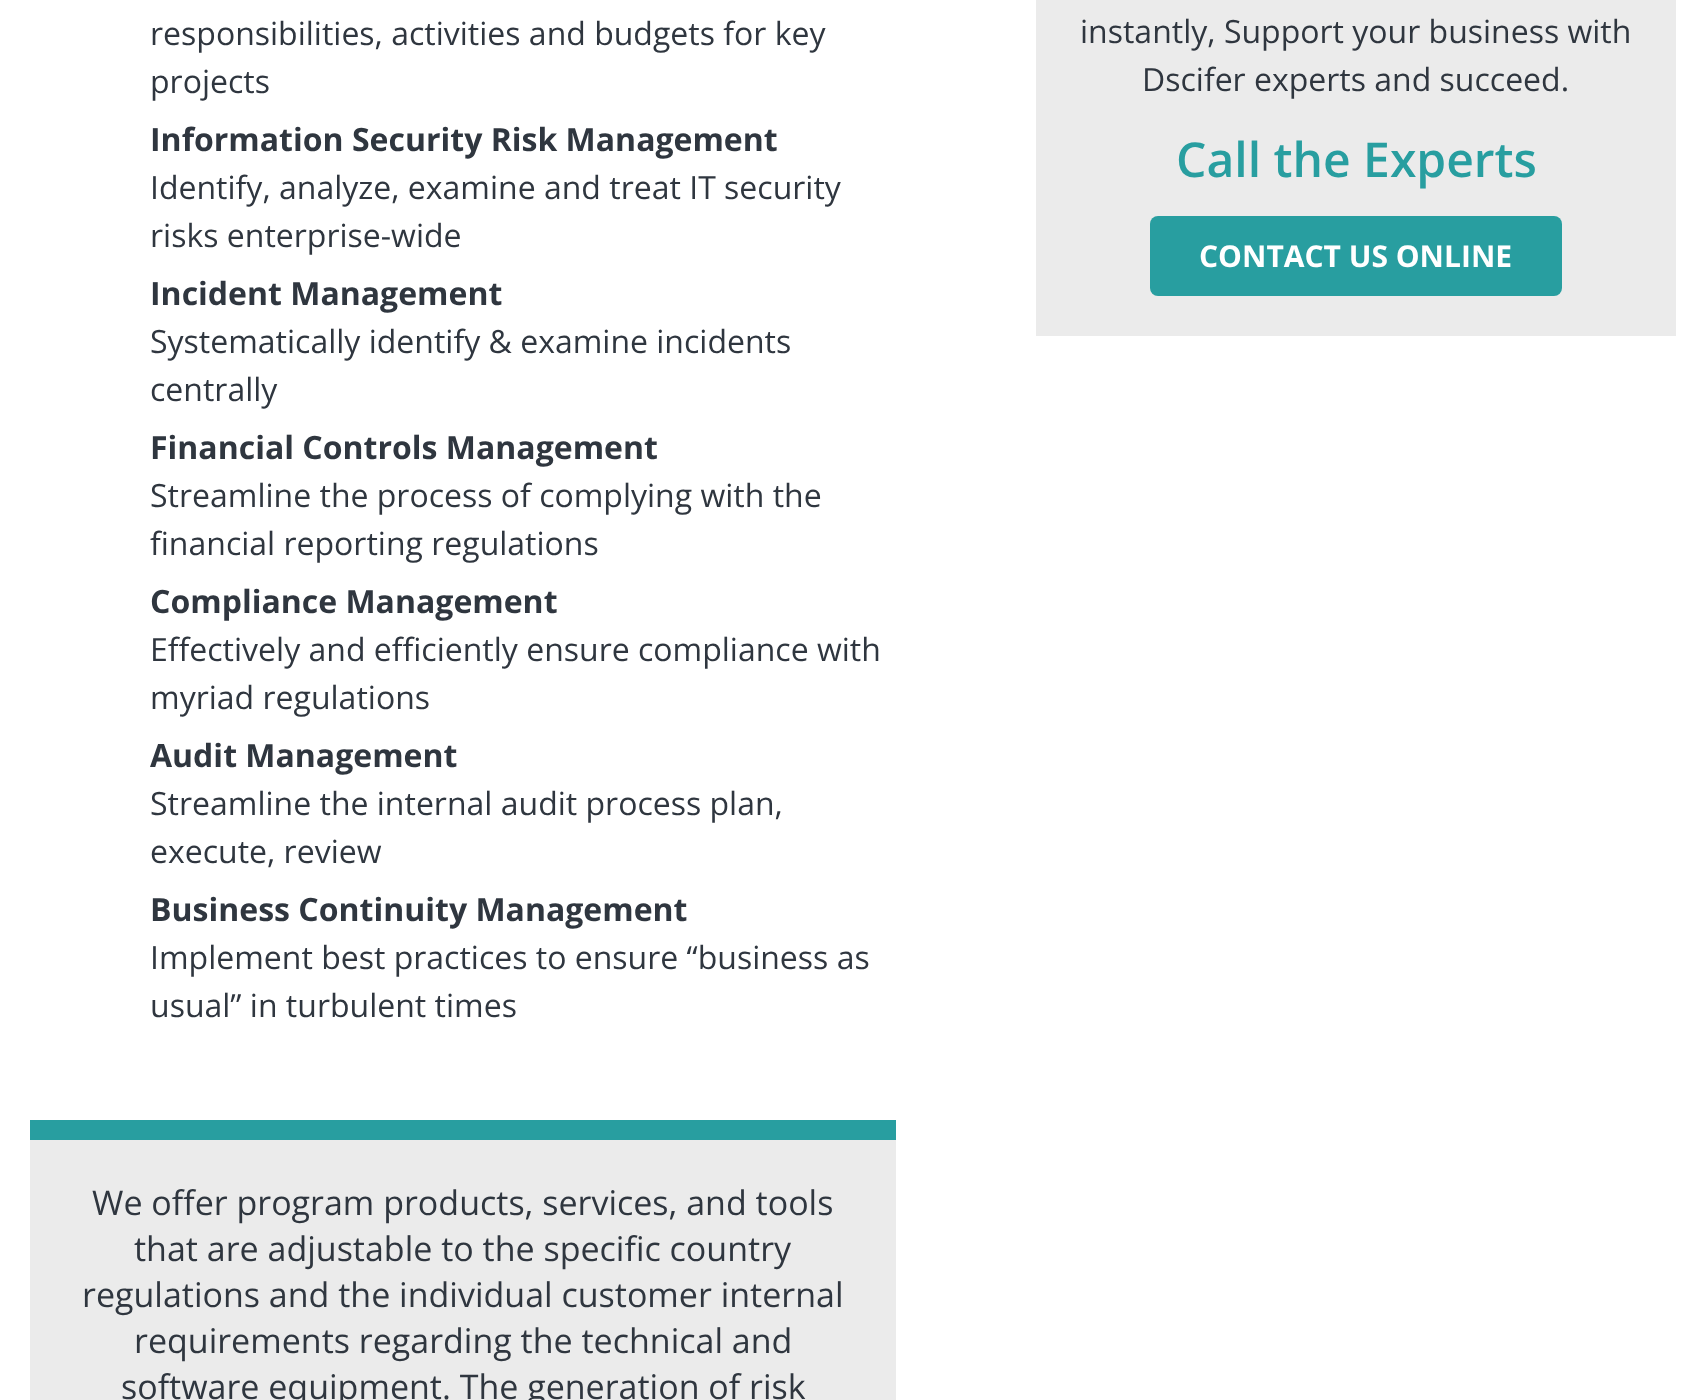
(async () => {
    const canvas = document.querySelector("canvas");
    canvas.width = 1706;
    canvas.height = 1400;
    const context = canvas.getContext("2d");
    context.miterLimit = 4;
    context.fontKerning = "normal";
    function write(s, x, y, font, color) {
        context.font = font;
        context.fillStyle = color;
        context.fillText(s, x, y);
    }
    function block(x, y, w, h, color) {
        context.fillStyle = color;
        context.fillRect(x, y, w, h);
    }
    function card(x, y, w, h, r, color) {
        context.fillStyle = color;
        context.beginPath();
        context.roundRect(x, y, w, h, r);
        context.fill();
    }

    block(0, 0, 1706, 1400, "rgb(255, 255, 255)");
    write("responsibilities, activities and budgets for key", 150, 45, "32px Open Sans", "rgb(47, 54, 63)");
    write("projects", 150, 93, "32px Open Sans", "rgb(47, 54, 63)");
    write("Information Security Risk Management", 150, 151, "bold 32px Open Sans", "rgb(47, 54, 63)");
    write("Identify, analyze, examine and treat IT security", 150, 199, "32px Open Sans", "rgb(47, 54, 63)");
    write("risks enterprise-wide", 150, 247, "32px Open Sans", "rgb(47, 54, 63)");
    write("Incident Management", 150, 305, "bold 32px Open Sans", "rgb(47, 54, 63)");
    write("Systematically identify & examine incidents", 150, 353, "32px Open Sans", "rgb(47, 54, 63)");
    write("centrally", 150, 401, "32px Open Sans", "rgb(47, 54, 63)");
    write("Financial Controls Management", 150, 459, "bold 32px Open Sans", "rgb(47, 54, 63)");
    write("Streamline the process of complying with the", 150, 507, "32px Open Sans", "rgb(47, 54, 63)");
    write("financial reporting regulations", 150, 555, "32px Open Sans", "rgb(47, 54, 63)");
    write("Compliance Management", 150, 613, "bold 32px Open Sans", "rgb(47, 54, 63)");
    write("Effectively and efficiently ensure compliance with", 150, 661, "32px Open Sans", "rgb(47, 54, 63)");
    write("myriad regulations", 150, 709, "32px Open Sans", "rgb(47, 54, 63)");
    write("Audit Management", 150, 767, "bold 32px Open Sans", "rgb(47, 54, 63)");
    write("Streamline the internal audit process plan,", 150, 815, "32px Open Sans", "rgb(47, 54, 63)");
    write("execute, review", 150, 863, "32px Open Sans", "rgb(47, 54, 63)");
    write("Business Continuity Management", 150, 921, "bold 32px Open Sans", "rgb(47, 54, 63)");
    write("Implement best practices to ensure “business as", 150, 969, "32px Open Sans", "rgb(47, 54, 63)");
    write("usual” in turbulent times", 150, 1017, "32px Open Sans", "rgb(47, 54, 63)");
    block(30, 1140, 866, 260, "rgb(235, 235, 235)");
    block(30, 1120, 866, 20, "rgb(40, 158, 160)");
    write("We offer program products, services, and tools", 92, 1215, "34px Open Sans", "rgb(47, 54, 63)");
    write("that are adjustable to the specific country", 134, 1261, "34px Open Sans", "rgb(47, 54, 63)");
    write("regulations and the individual customer internal", 82, 1307, "34px Open Sans", "rgb(47, 54, 63)");
    write("requirements regarding the technical and", 134, 1353, "34px Open Sans", "rgb(47, 54, 63)");
    write("software equipment. The generation of risk", 121, 1399, "34px Open Sans", "rgb(47, 54, 63)");
    block(1036, 0, 640, 336, "rgb(235, 235, 235)");
    write("instantly, Support your business with", 1080, 43, "32px Open Sans", "rgb(47, 54, 63)");
    write("Dscifer experts and succeed.", 1142, 91, "32px Open Sans", "rgb(47, 54, 63)");
    write("Call the Experts", 1176, 177, "600 48px Open Sans", "rgb(40, 158, 160)");
    card(1150, 216, 412, 80, 8, "rgb(40, 158, 160)");
    write("CONTACT US ONLINE", 1199, 267, "bold 30px Open Sans", "rgb(255, 255, 255)");
})();
